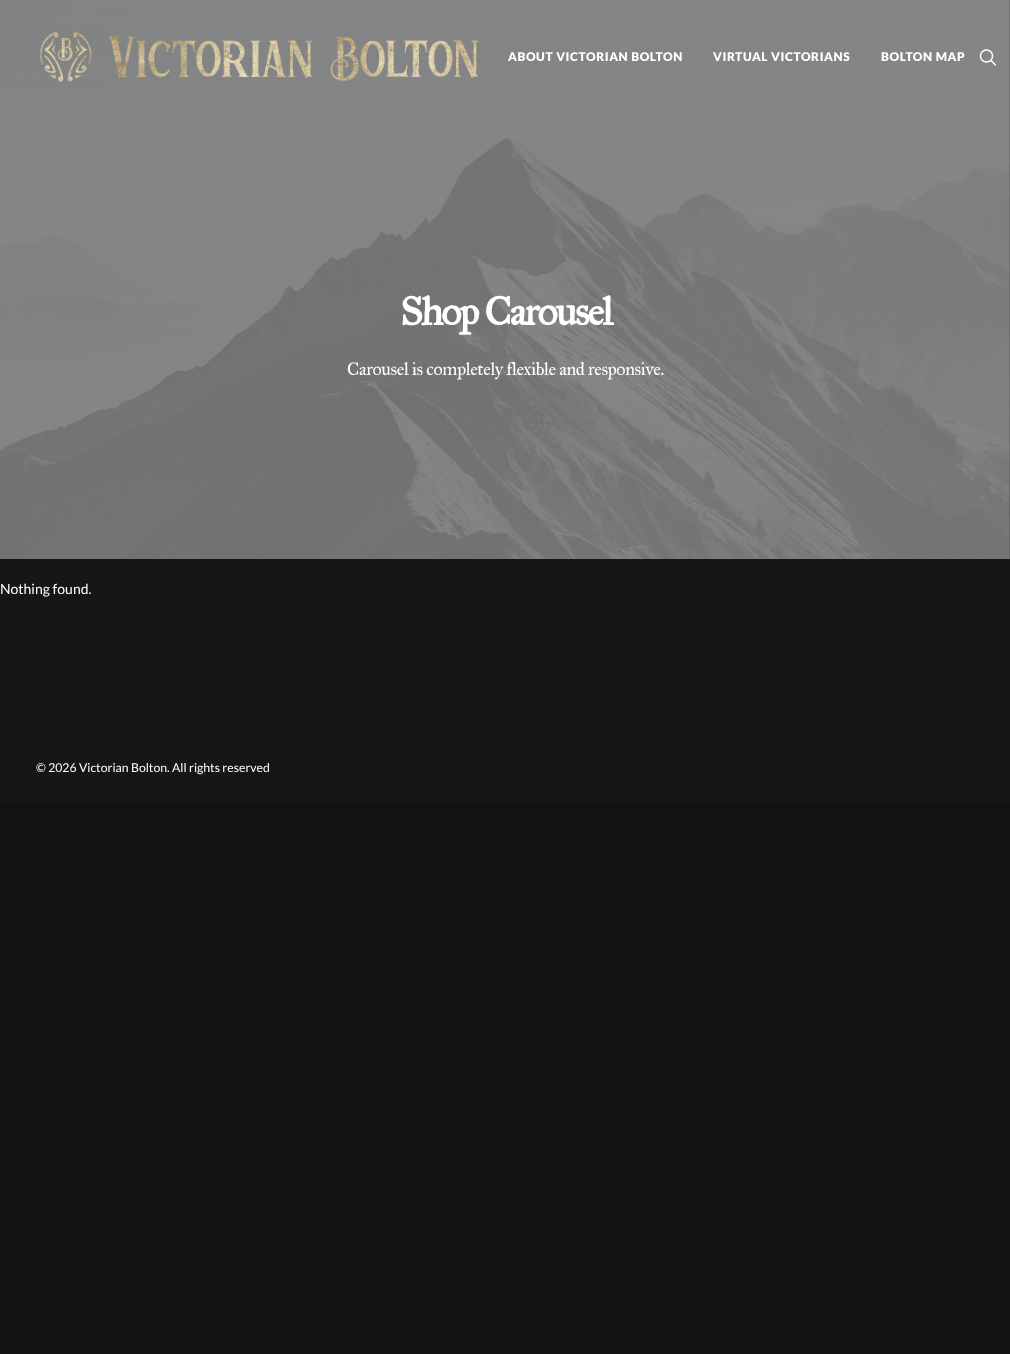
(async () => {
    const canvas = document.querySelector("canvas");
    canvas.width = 1010;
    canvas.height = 1354;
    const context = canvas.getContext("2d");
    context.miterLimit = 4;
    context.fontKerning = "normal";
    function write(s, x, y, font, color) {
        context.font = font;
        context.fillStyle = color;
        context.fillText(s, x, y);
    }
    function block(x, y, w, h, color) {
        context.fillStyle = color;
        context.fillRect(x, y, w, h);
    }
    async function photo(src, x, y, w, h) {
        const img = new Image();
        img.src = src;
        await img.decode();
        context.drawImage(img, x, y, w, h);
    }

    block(0, 0, 1010, 1354, "rgb(16, 18, 19)");
    await photo("media/3.png", 0, 0, 1010, 559);
    await photo("media/1.png", 39, 31, 440, 51);
    context.letterSpacing = "0.6px";
    write("ABOUT VICTORIAN BOLTON", 508, 61, "900 12px Lato", "rgb(255, 255, 255)");
    write("VIRTUAL VICTORIANS", 713, 61, "900 12px Lato", "rgb(255, 255, 255)");
    write("BOLTON MAP", 881, 61, "900 12px Lato", "rgb(255, 255, 255)");
    await photo("media/2.png", 979, 49, 18, 17);
    context.letterSpacing = "-2px";
    write("Shop Carousel", 400, 325, "bold 40px IM FELL Great Primer", "rgb(255, 255, 255)");
    context.letterSpacing = "-0.35px";
    write("Carousel is completely flexible and responsive.", 347, 375, "18px IM FELL Great Primer", "rgb(255, 255, 255)");
    block(0, 559, 1010, 243, "rgb(20, 22, 24)");
    context.letterSpacing = "0px";
    write("Nothing found.", 0, 594, "14px Lato", "rgb(255, 255, 255)");
    write("© 2026 Victorian Bolton. All rights reserved", 36, 772, "12.25px Lato", "rgb(255, 255, 255)");
})();
